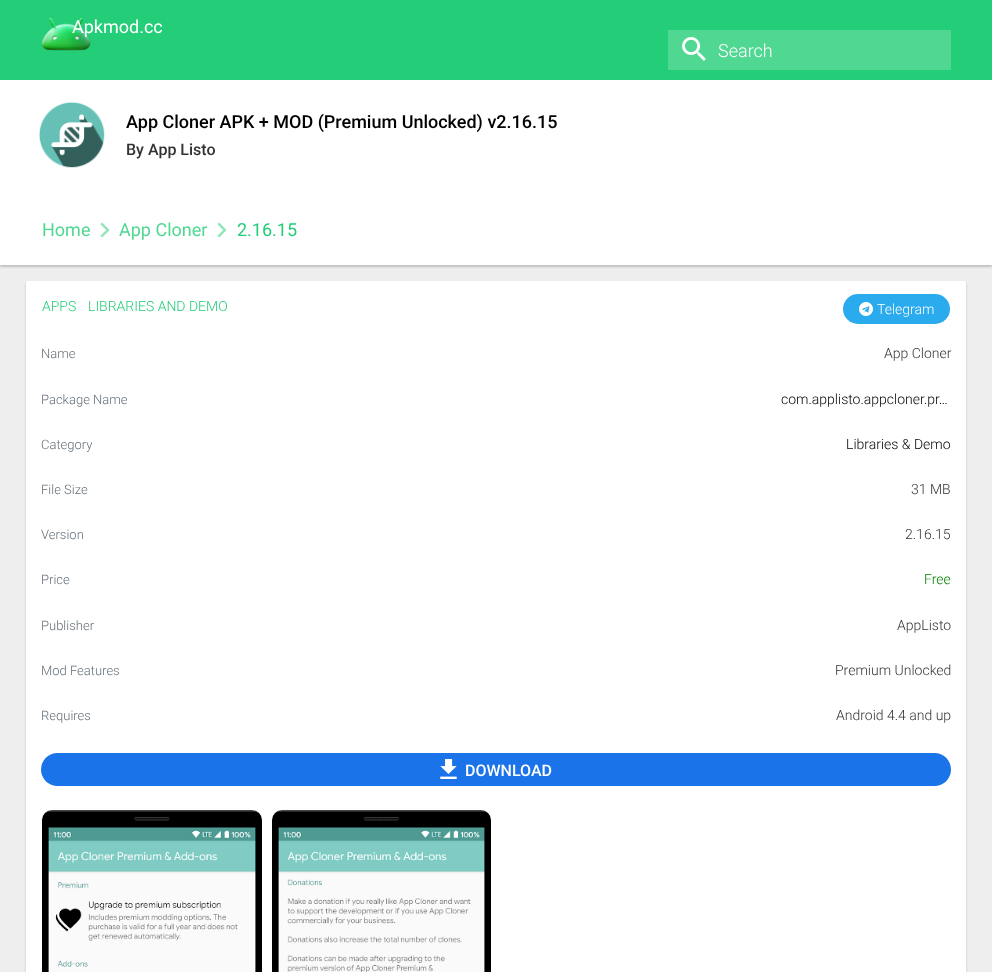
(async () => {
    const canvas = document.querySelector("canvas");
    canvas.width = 992;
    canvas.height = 972;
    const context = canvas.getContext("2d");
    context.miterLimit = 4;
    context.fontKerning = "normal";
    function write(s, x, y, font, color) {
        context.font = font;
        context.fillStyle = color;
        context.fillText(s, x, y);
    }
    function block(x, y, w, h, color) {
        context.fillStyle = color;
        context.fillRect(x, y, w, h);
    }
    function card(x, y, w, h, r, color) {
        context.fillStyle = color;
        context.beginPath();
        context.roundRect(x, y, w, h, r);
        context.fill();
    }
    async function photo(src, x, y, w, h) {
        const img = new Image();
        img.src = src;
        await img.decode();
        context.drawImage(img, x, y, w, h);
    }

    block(0, 0, 992, 972, "rgb(238, 238, 238)");
    context.fillStyle = "rgba(0, 0, 0, 0.2)";
    context.filter = "blur(1px)";
    context.beginPath();
    context.rect(0, 81, 992, 186);
    context.fill();
    context.filter = "none";
    block(0, 0, 992, 80, "rgb(36, 205, 119)");
    await photo("media/1.png", 41, 18, 50, 33);
    write("Apkmod.cc", 72, 33, "18px Roboto", "rgb(255, 255, 255)");
    block(668, 30, 283, 40, "rgb(80, 215, 146)");
    await photo("media/2.png", 682, 37, 24, 24);
    write("Search", 718, 57, "300 18px Roboto", "rgb(255, 255, 255)");
    block(0, 80, 992, 185, "rgb(255, 255, 255)");
    await photo("media/3.png", 39, 102, 66, 66);
    write("App Cloner APK + MOD (Premium Unlocked) v2.16.15", 126, 128, "500 18px Roboto", "rgb(0, 0, 0)");
    write("By App Listo", 126, 155, "500 16px Roboto", "rgb(51, 51, 51)");
    write("Home", 42, 236, "18px Roboto", "rgb(80, 215, 146)");
    await photo("media/4.png", 100, 222, 10, 16);
    write("App Cloner", 119, 236, "18px Roboto", "rgb(80, 215, 146)");
    await photo("media/4.png", 217, 222, 10, 16);
    write("2.16.15", 237, 236, "18px Roboto", "rgb(36, 205, 119)");
    context.fillStyle = "rgba(0, 0, 0, 0.2)";
    context.filter = "blur(1px)";
    context.beginPath();
    context.roundRect(26, 283, 940, 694, 2);
    context.fill();
    context.filter = "none";
    card(26, 281, 940, 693, 2, "rgb(255, 255, 255)");
    write("APPS", 42, 311, "300 14px Roboto", "rgb(36, 205, 119)");
    write("LIBRARIES AND DEMO", 88, 311, "300 14px Roboto", "rgb(36, 205, 119)");
    card(843, 294, 107, 30, 15, "rgb(42, 171, 238)");
    await photo("media/5.png", 859, 302, 14, 14);
    write("Telegram", 877, 314, "300 14px Roboto", "rgb(255, 255, 255)");
    write("Name", 41, 358, "300 13px Roboto", "rgb(100, 111, 120)");
    write("App Cloner", 884, 358, "300 14px Roboto", "rgb(51, 51, 51)");
    write("Package Name", 41, 404, "300 13px Roboto", "rgb(100, 111, 120)");
    write("com.applisto.appcloner.pr…", 781, 404, "300 14px Roboto", "rgb(0, 0, 0)");
    write("Category", 41, 449, "300 13px Roboto", "rgb(100, 111, 120)");
    write("Libraries & Demo", 846, 449, "300 14px Roboto", "rgb(0, 0, 0)");
    write("File Size", 41, 494, "300 13px Roboto", "rgb(100, 111, 120)");
    write("31 MB", 911, 494, "300 14px Roboto", "rgb(51, 51, 51)");
    write("Version", 41, 539, "300 13px Roboto", "rgb(100, 111, 120)");
    write("2.16.15", 905, 539, "300 14px Roboto", "rgb(51, 51, 51)");
    write("Price", 41, 584, "300 13px Roboto", "rgb(100, 111, 120)");
    write("Free", 924, 584, "300 14px Roboto", "rgb(0, 128, 0)");
    write("Publisher", 41, 630, "300 13px Roboto", "rgb(100, 111, 120)");
    write("AppListo", 897, 630, "300 14px Roboto", "rgb(51, 51, 51)");
    write("Mod Features", 41, 675, "300 13px Roboto", "rgb(100, 111, 120)");
    write("Premium Unlocked", 835, 675, "300 14px Roboto", "rgb(51, 51, 51)");
    write("Requires", 41, 720, "300 13px Roboto", "rgb(100, 111, 120)");
    write("Android 4.4 and up", 836, 720, "300 14px Roboto", "rgb(51, 51, 51)");
    card(41, 753, 910, 33, 16.5, "rgb(26, 115, 232)");
    await photo("media/6.png", 440, 759, 17, 20);
    write("DOWNLOAD", 465, 776, "500 16px Roboto", "rgb(255, 255, 255)");
    await photo("media/7.png", 42, 810, 220, 162);
    await photo("media/8.png", 272, 810, 219, 162);
})();
